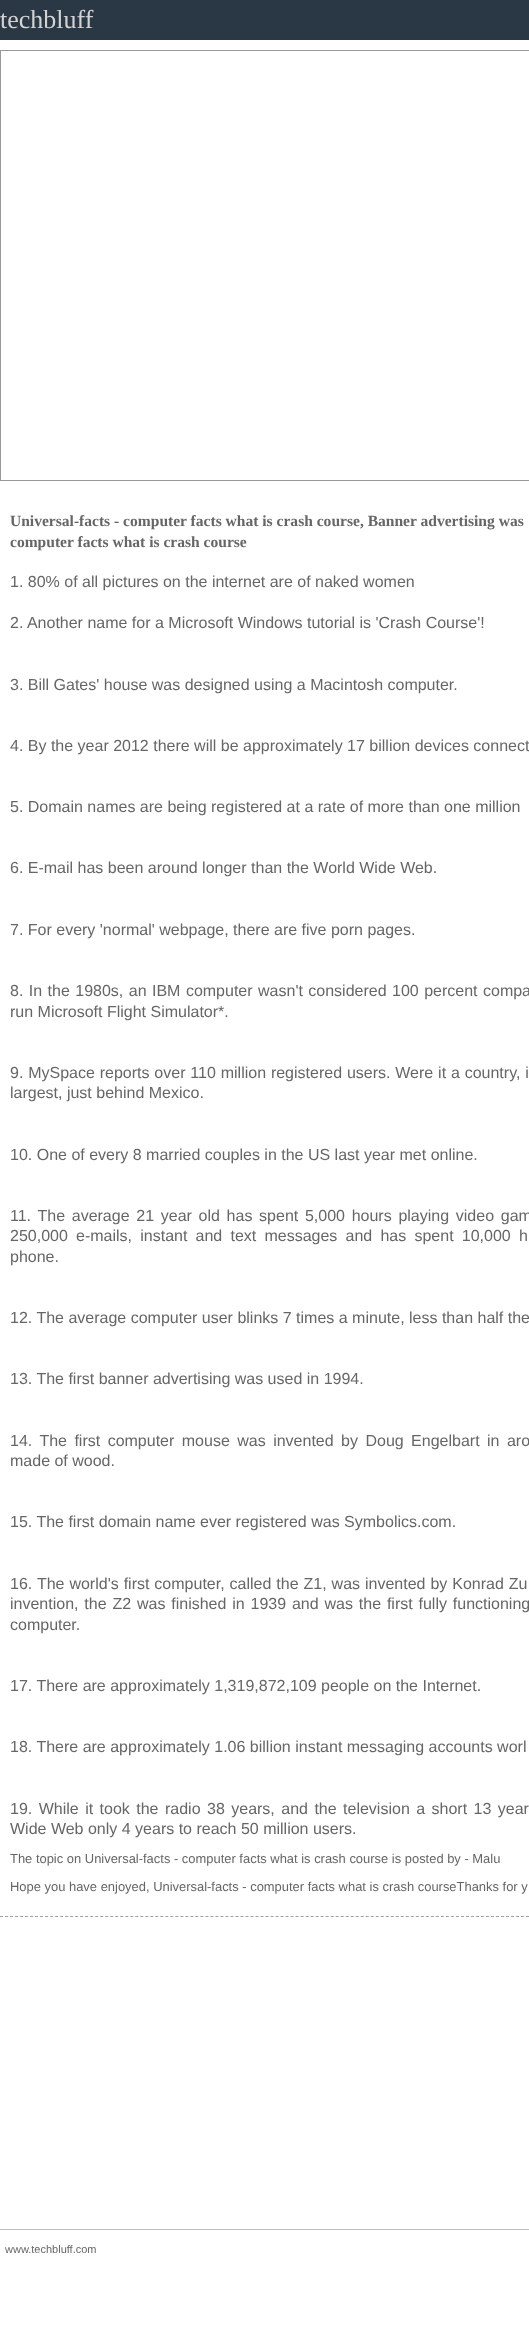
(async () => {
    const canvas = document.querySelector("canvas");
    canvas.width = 529;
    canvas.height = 2352;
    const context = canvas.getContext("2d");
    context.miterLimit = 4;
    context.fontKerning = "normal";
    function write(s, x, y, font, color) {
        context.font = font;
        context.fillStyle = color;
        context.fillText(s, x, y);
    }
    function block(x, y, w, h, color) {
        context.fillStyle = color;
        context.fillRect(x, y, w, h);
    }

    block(0, 0, 529, 2352, "rgb(255, 255, 255)");
    block(0, 0, 529, 40, "rgb(42, 55, 68)");
    write("techbluff", 0, 28, "26px Liberation Serif", "rgb(211, 211, 211)");
    context.strokeStyle = "rgb(153, 153, 153)";
    context.strokeRect(0.5, 50.5, 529, 430);
    context.beginPath();
    context.moveTo(0, 1916.5);
    context.lineTo(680, 1916.5);
    context.strokeStyle = "rgb(160, 160, 160)";
    context.setLineDash([3, 2.01]);
    context.stroke();
    write("Universal-facts - computer facts what is crash course, Banner advertising was", 10, 526, "bold 15.55px Liberation Serif", "rgb(102, 102, 102)");
    write("computer facts what is crash course", 10, 547, "bold 15.55px Liberation Serif", "rgb(102, 102, 102)");
    write("1. 80% of all pictures on the internet are of naked women", 10, 587, "16px Liberation Sans", "rgb(102, 102, 102)");
    write("2. Another name for a Microsoft Windows tutorial is 'Crash Course'!", 10, 628, "16px Liberation Sans", "rgb(102, 102, 102)");
    write("3. Bill Gates' house was designed using a Macintosh computer.", 10, 690, "16px Liberation Sans", "rgb(102, 102, 102)");
    write("4. By the year 2012 there will be approximately 17 billion devices connect", 10, 751, "16px Liberation Sans", "rgb(102, 102, 102)");
    write("5. Domain names are being registered at a rate of more than one million", 10, 812, "16px Liberation Sans", "rgb(102, 102, 102)");
    write("6. E-mail has been around longer than the World Wide Web.", 10, 873, "16px Liberation Sans", "rgb(102, 102, 102)");
    write("7. For every 'normal' webpage, there are five porn pages.", 10, 935, "16px Liberation Sans", "rgb(102, 102, 102)");
    context.wordSpacing = "1px";
    write("8. In the 1980s, an IBM computer wasn't considered 100 percent compa", 10, 996, "16px Liberation Sans", "rgb(102, 102, 102)");
    context.wordSpacing = "0px";
    write("run Microsoft Flight Simulator*.", 10, 1017, "16px Liberation Sans", "rgb(102, 102, 102)");
    context.wordSpacing = "0.4px";
    write("9. MySpace reports over 110 million registered users. Were it a country, i", 10, 1078, "16px Liberation Sans", "rgb(102, 102, 102)");
    context.wordSpacing = "0px";
    write("largest, just behind Mexico.", 10, 1098, "16px Liberation Sans", "rgb(102, 102, 102)");
    write("10. One of every 8 married couples in the US last year met online.", 10, 1160, "16px Liberation Sans", "rgb(102, 102, 102)");
    context.wordSpacing = "2.25px";
    write("11. The average 21 year old has spent 5,000 hours playing video gam", 10, 1221, "16px Liberation Sans", "rgb(102, 102, 102)");
    context.wordSpacing = "3.75px";
    write("250,000 e-mails, instant and text messages and has spent 10,000 h", 10, 1241, "16px Liberation Sans", "rgb(102, 102, 102)");
    context.wordSpacing = "0px";
    write("phone.", 10, 1262, "16px Liberation Sans", "rgb(102, 102, 102)");
    write("12. The average computer user blinks 7 times a minute, less than half the", 10, 1323, "16px Liberation Sans", "rgb(102, 102, 102)");
    write("13. The first banner advertising was used in 1994.", 10, 1384, "16px Liberation Sans", "rgb(102, 102, 102)");
    context.wordSpacing = "3px";
    write("14. The first computer mouse was invented by Doug Engelbart in aro", 10, 1446, "16px Liberation Sans", "rgb(102, 102, 102)");
    context.wordSpacing = "0px";
    write("made of wood.", 10, 1466, "16px Liberation Sans", "rgb(102, 102, 102)");
    write("15. The first domain name ever registered was Symbolics.com.", 10, 1527, "16px Liberation Sans", "rgb(102, 102, 102)");
    context.wordSpacing = "0.5px";
    write("16. The world's first computer, called the Z1, was invented by Konrad Zu", 10, 1589, "16px Liberation Sans", "rgb(102, 102, 102)");
    context.wordSpacing = "1.4px";
    write("invention, the Z2 was finished in 1939 and was the first fully functioning", 10, 1609, "16px Liberation Sans", "rgb(102, 102, 102)");
    context.wordSpacing = "0px";
    write("computer.", 10, 1630, "16px Liberation Sans", "rgb(102, 102, 102)");
    write("17. There are approximately 1,319,872,109 people on the Internet.", 10, 1691, "16px Liberation Sans", "rgb(102, 102, 102)");
    write("18. There are approximately 1.06 billion instant messaging accounts worl", 10, 1752, "16px Liberation Sans", "rgb(102, 102, 102)");
    context.wordSpacing = "2px";
    write("19. While it took the radio 38 years, and the television a short 13 year", 10, 1814, "16px Liberation Sans", "rgb(102, 102, 102)");
    context.wordSpacing = "0px";
    write("Wide Web only 4 years to reach 50 million users.", 10, 1834, "16px Liberation Sans", "rgb(102, 102, 102)");
    write("The topic on Universal-facts - computer facts what is crash course is posted by - Malu", 10, 1863, "12.95px Liberation Sans", "rgb(102, 102, 102)");
    write("Hope you have enjoyed, Universal-facts - computer facts what is crash courseThanks for y", 10, 1891, "12.95px Liberation Sans", "rgb(102, 102, 102)");
    block(0, 2229, 529, 1, "rgb(191, 191, 191)");
    write("www.techbluff.com", 5, 2253, "11px Liberation Sans", "rgb(102, 102, 102)");
})();
